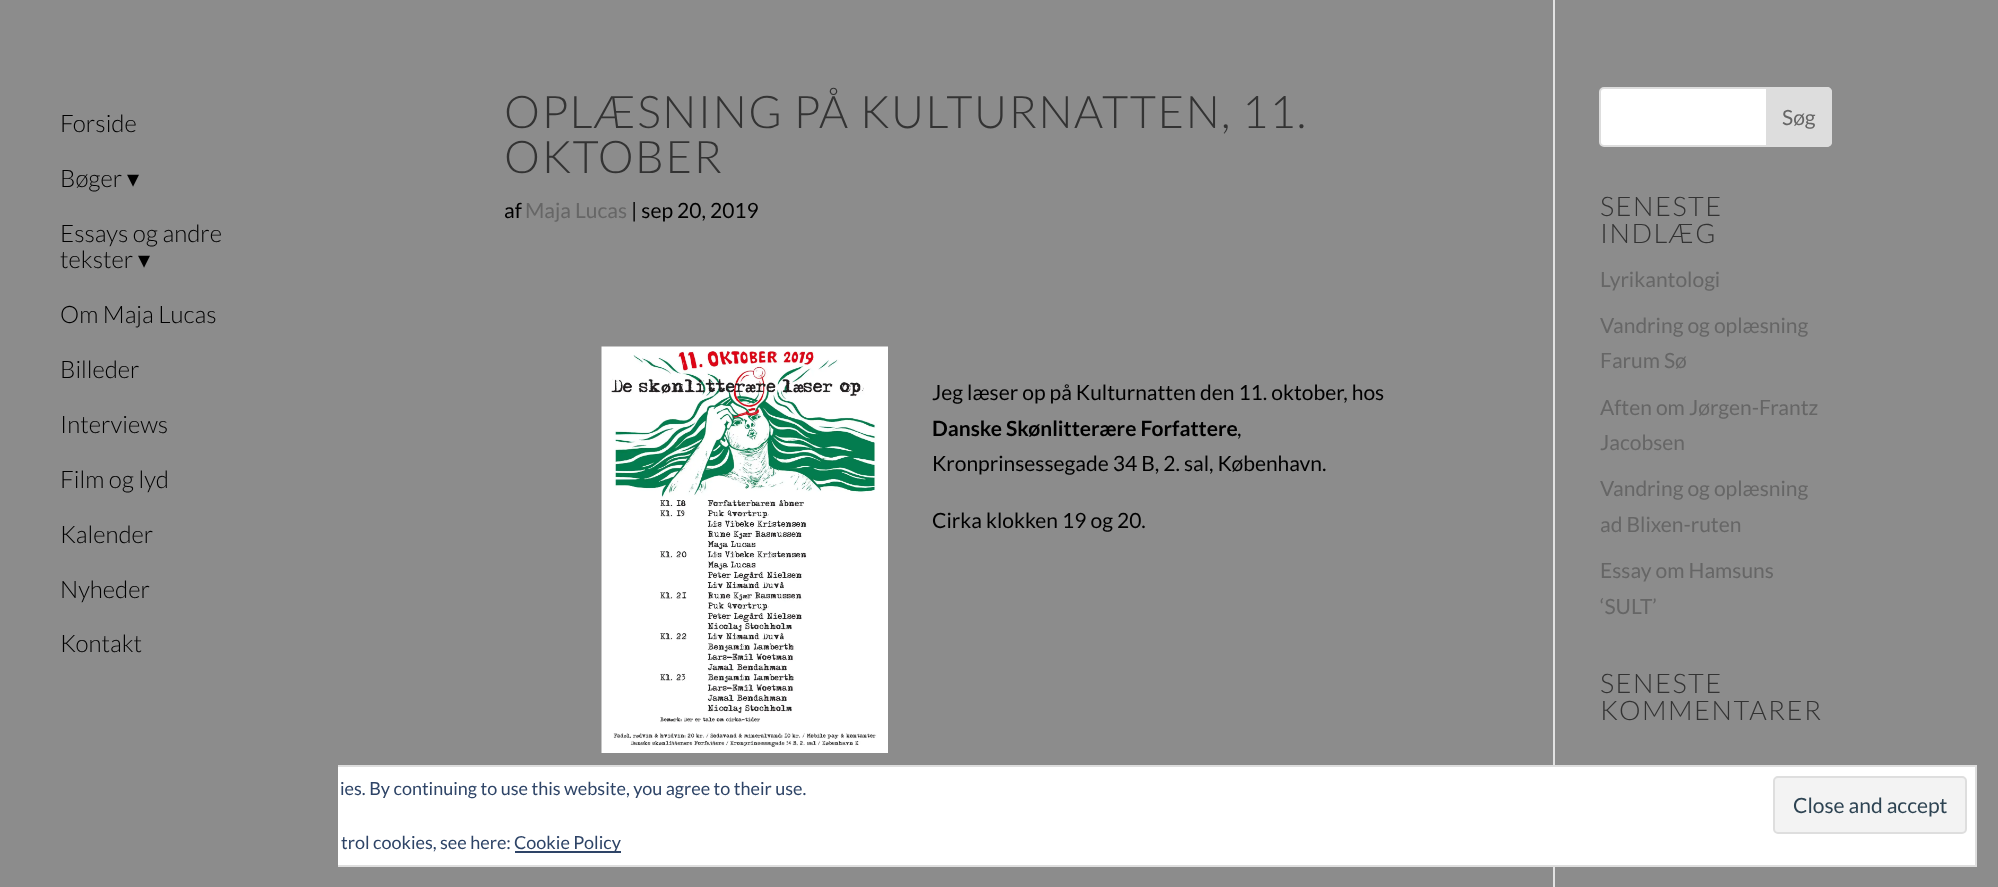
(async () => {
    const canvas = document.querySelector("canvas");
    canvas.width = 1998;
    canvas.height = 887;
    const context = canvas.getContext("2d");
    context.miterLimit = 4;
    context.fontKerning = "normal";
    function write(s, x, y, font, color) {
        context.font = font;
        context.fillStyle = color;
        context.fillText(s, x, y);
    }
    function block(x, y, w, h, color) {
        context.fillStyle = color;
        context.fillRect(x, y, w, h);
    }
    async function photo(src, x, y, w, h) {
        const img = new Image();
        img.src = src;
        await img.decode();
        context.drawImage(img, x, y, w, h);
    }

    block(0, 0, 1998, 887, "rgb(140, 140, 140)");
    block(1553, 0, 2, 887, "rgb(226, 226, 226)");
    block(338, 767, 1637, 98, "rgb(255, 255, 255)");
    context.strokeStyle = "rgb(222, 222, 222)";
    context.lineWidth = 2;
    context.strokeRect(22, 766, 1954, 100);
    block(21, 765, 317, 102, "rgb(140, 140, 140)");
    write("Forside", 60, 132, "300 24px Lato", "rgb(0, 0, 0)");
    write("Bøger", 60, 187, "300 24px Lato", "rgb(0, 0, 0)");
    write("▾", 127, 187, "24px DejaVu Sans", "rgb(0, 0, 0)");
    write("Essays og andre", 60, 242, "300 24px Lato", "rgb(0, 0, 0)");
    write("tekster", 60, 268, "300 24px Lato", "rgb(0, 0, 0)");
    write("▾", 138, 268, "24px DejaVu Sans", "rgb(0, 0, 0)");
    write("Om Maja Lucas", 60, 323, "300 24px Lato", "rgb(0, 0, 0)");
    write("Billeder", 60, 378, "300 24px Lato", "rgb(0, 0, 0)");
    write("Interviews", 60, 433, "300 24px Lato", "rgb(0, 0, 0)");
    write("Film og lyd", 60, 488, "300 24px Lato", "rgb(0, 0, 0)");
    write("Kalender", 60, 543, "300 24px Lato", "rgb(0, 0, 0)");
    write("Nyheder", 60, 598, "300 24px Lato", "rgb(0, 0, 0)");
    write("Kontakt", 60, 652, "300 24px Lato", "rgb(0, 0, 0)");
    context.letterSpacing = "1.5px";
    write("OPLÆSNING PÅ KULTURNATTEN, 11.", 504, 128, "300 45px Lato", "rgb(51, 51, 51)");
    write("OKTOBER", 504, 173, "300 45px Lato", "rgb(51, 51, 51)");
    context.letterSpacing = "0px";
    write("af", 504, 218, "21px Lato", "rgb(0, 0, 0)");
    write("Maja Lucas", 525, 218, "21px Lato", "rgb(102, 102, 102)");
    write("| sep 20, 2019", 631, 218, "21px Lato", "rgb(0, 0, 0)");
    await photo("media/1.png", 601, 346, 287, 407);
    write("Jeg læser op på Kulturnatten den 11. oktober, hos", 932, 400, "21px Lato", "rgb(0, 0, 0)");
    write("Danske Skønlitterære Forfattere", 932, 436, "bold 21px Lato", "rgb(0, 0, 0)");
    write(",", 1237, 436, "21px Lato", "rgb(0, 0, 0)");
    write("Kronprinsessegade 34 B, 2. sal, København.", 932, 471, "21px Lato", "rgb(0, 0, 0)");
    write("Cirka klokken 19 og 20.", 932, 528, "21px Lato", "rgb(0, 0, 0)");
    context.fillStyle = "rgb(255, 255, 255)";
    context.beginPath();
    context.roundRect(1600, 88, 231, 58, 4);
    context.fill();
    context.strokeStyle = "rgb(221, 221, 221)";
    context.stroke();
    context.fillStyle = "rgb(221, 221, 221)";
    context.beginPath();
    context.roundRect(1767, 88, 64, 58, [0, 4, 4, 0]);
    context.fill();
    context.stroke();
    write("Søg", 1782, 125, "21px Lato", "rgb(102, 102, 102)");
    context.letterSpacing = "1.5px";
    write("SENESTE", 1600, 216, "300 27px Lato", "rgb(51, 51, 51)");
    write("INDLÆG", 1600, 243, "300 27px Lato", "rgb(51, 51, 51)");
    context.letterSpacing = "0px";
    write("Lyrikantologi", 1600, 287, "21px Lato", "rgb(102, 102, 102)");
    write("Vandring og oplæsning", 1600, 333, "21px Lato", "rgb(102, 102, 102)");
    write("Farum Sø", 1600, 368, "21px Lato", "rgb(102, 102, 102)");
    write("Aften om Jørgen-Frantz", 1600, 415, "21px Lato", "rgb(102, 102, 102)");
    write("Jacobsen", 1600, 450, "21px Lato", "rgb(102, 102, 102)");
    write("Vandring og oplæsning", 1600, 496, "21px Lato", "rgb(102, 102, 102)");
    write("ad Blixen-ruten", 1600, 532, "21px Lato", "rgb(102, 102, 102)");
    write("Essay om Hamsuns", 1600, 578, "21px Lato", "rgb(102, 102, 102)");
    write("‘SULT’", 1600, 614, "21px Lato", "rgb(102, 102, 102)");
    context.letterSpacing = "1.5px";
    write("SENESTE", 1600, 693, "300 27px Lato", "rgb(51, 51, 51)");
    write("KOMMENTARER", 1600, 720, "300 27px Lato", "rgb(51, 51, 51)");
    context.letterSpacing = "0px";
    write("ies. By continuing to use this website, you agree to their use.", 340, 795, "18px Lato", "rgb(46, 68, 103)");
    context.fillStyle = "rgb(243, 243, 243)";
    context.beginPath();
    context.roundRect(1774, 777, 192, 56, 4);
    context.fill();
    context.strokeStyle = "rgb(222, 222, 222)";
    context.stroke();
    write("Close and accept", 1793, 813, "21px Lato", "rgb(46, 68, 83)");
    write("trol cookies, see here:", 341, 849, "18px Lato", "rgb(46, 68, 103)");
    block(515, 851, 106, 2, "rgb(46, 68, 103)");
    write("Cookie Policy", 514, 849, "18px Lato", "rgb(46, 68, 103)");
})();
